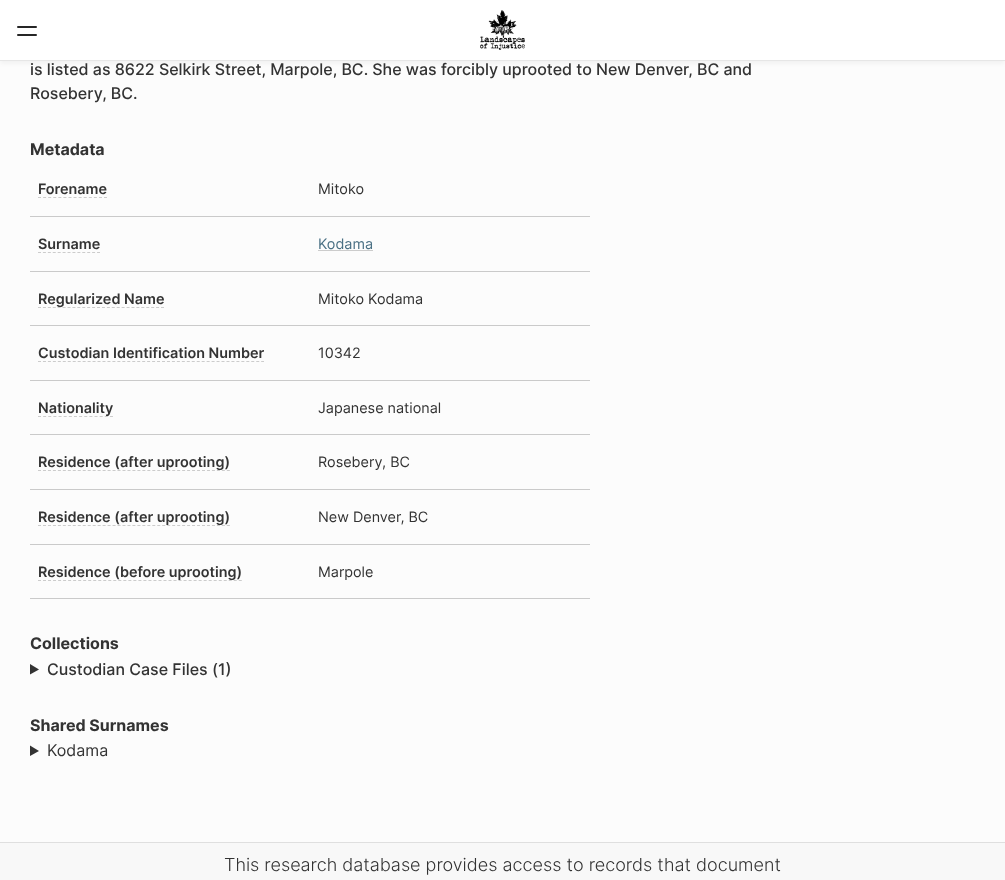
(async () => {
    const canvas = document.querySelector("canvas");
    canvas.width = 1005;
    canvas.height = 880;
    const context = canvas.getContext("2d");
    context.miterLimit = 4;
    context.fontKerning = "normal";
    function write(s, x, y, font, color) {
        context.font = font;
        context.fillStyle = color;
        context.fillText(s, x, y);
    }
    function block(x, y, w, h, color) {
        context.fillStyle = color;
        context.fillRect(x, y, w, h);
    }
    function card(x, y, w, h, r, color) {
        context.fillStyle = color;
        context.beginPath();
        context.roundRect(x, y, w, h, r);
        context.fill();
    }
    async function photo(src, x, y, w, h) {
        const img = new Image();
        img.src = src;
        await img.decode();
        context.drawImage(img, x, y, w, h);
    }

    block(0, 0, 1005, 880, "rgb(252, 252, 252)");
    context.fillStyle = "rgba(0, 0, 0, 0.05)";
    context.filter = "blur(2.5px)";
    context.beginPath();
    context.rect(0, 2, 1005, 61);
    context.fill();
    context.filter = "none";
    block(0, 0, 1005, 60, "rgb(255, 255, 255)");
    block(0, 60, 1005, 1, "rgb(230, 230, 230)");
    card(17, 26, 20, 2, 1, "rgb(38, 38, 38)");
    card(17, 34, 20, 2, 1, "rgb(38, 38, 38)");
    await photo("media/1.png", 480, 10, 45, 40);
    write("is listed as 8622 Selkirk Street, Marpole, BC. She was forcibly uprooted to New Denver, BC and", 30, 75, "500 16px Inter", "rgb(51, 51, 51)");
    write("Rosebery, BC.", 30, 99, "500 16px Inter", "rgb(51, 51, 51)");
    write("Metadata", 30, 155, "bold 16px Inter", "rgb(51, 51, 51)");
    write("Forename", 38, 194, "600 14.4px Inter", "rgb(51, 51, 51)");
    context.beginPath();
    context.moveTo(38, 197.5);
    context.lineTo(107, 197.5);
    context.strokeStyle = "rgb(204, 204, 204)";
    context.setLineDash([3, 2.08]);
    context.stroke();
    block(30, 216, 560, 1, "rgb(202, 202, 202)");
    write("Mitoko", 318, 194, "14.4px Inter", "rgb(51, 51, 51)");
    write("Surname", 38, 249, "600 14.4px Inter", "rgb(51, 51, 51)");
    context.beginPath();
    context.moveTo(38, 252.5);
    context.lineTo(100, 252.5);
    context.setLineDash([3, 1.92]);
    context.stroke();
    block(30, 271, 560, 1, "rgb(202, 202, 202)");
    write("Kodama", 318, 249, "14.4px Inter", "rgb(74, 112, 132)");
    block(318, 250, 55, 1, "rgb(204, 204, 204)");
    context.beginPath();
    context.moveTo(38, 307.5);
    context.lineTo(164, 307.5);
    context.stroke();
    write("Regularized Name", 38, 304, "600 14.4px Inter", "rgb(51, 51, 51)");
    block(30, 325, 560, 1, "rgb(202, 202, 202)");
    write("Mitoko Kodama", 318, 304, "14.4px Inter", "rgb(51, 51, 51)");
    write("Custodian Identification Number", 38, 358, "600 14.4px Inter", "rgb(51, 51, 51)");
    context.beginPath();
    context.moveTo(38, 361.5);
    context.lineTo(264, 361.5);
    context.setLineDash([3, 1.96]);
    context.stroke();
    block(30, 380, 560, 1, "rgb(202, 202, 202)");
    write("10342", 318, 358, "14.4px Inter", "rgb(51, 51, 51)");
    write("Nationality", 38, 413, "600 14.4px Inter", "rgb(51, 51, 51)");
    context.beginPath();
    context.moveTo(38, 416.5);
    context.lineTo(113, 416.5);
    context.setLineDash([3, 2.14]);
    context.stroke();
    block(30, 434, 560, 1, "rgb(202, 202, 202)");
    write("Japanese national", 318, 413, "14.4px Inter", "rgb(51, 51, 51)");
    context.beginPath();
    context.moveTo(38, 470.5);
    context.lineTo(230, 470.5);
    context.setLineDash([3, 1.97]);
    context.stroke();
    write("Residence (after uprooting)", 38, 467, "600 14.4px Inter", "rgb(51, 51, 51)");
    block(30, 489, 560, 1, "rgb(202, 202, 202)");
    write("Rosebery, BC", 318, 467, "14.4px Inter", "rgb(51, 51, 51)");
    context.beginPath();
    context.moveTo(38, 525.5);
    context.lineTo(230, 525.5);
    context.stroke();
    write("Residence (after uprooting)", 38, 522, "600 14.4px Inter", "rgb(51, 51, 51)");
    block(30, 544, 560, 1, "rgb(202, 202, 202)");
    write("New Denver, BC", 318, 522, "14.4px Inter", "rgb(51, 51, 51)");
    context.beginPath();
    context.moveTo(38, 580.5);
    context.lineTo(242, 580.5);
    context.setLineDash([3, 2.02]);
    context.stroke();
    write("Residence (before uprooting)", 38, 577, "600 14.4px Inter", "rgb(51, 51, 51)");
    block(30, 598, 560, 1, "rgb(202, 202, 202)");
    write("Marpole", 318, 577, "14.4px Inter", "rgb(51, 51, 51)");
    write("Collections", 30, 649, "bold 16px Inter", "rgb(51, 51, 51)");
    context.beginPath();
    context.moveTo(30, 664);
    context.lineTo(39, 669.5);
    context.lineTo(30, 674.5);
    context.closePath();
    context.fill();
    write("Custodian Case Files (1)", 47, 675, "500 16px Inter", "rgb(51, 51, 51)");
    write("Shared Surnames", 30, 731, "bold 16px Inter", "rgb(51, 51, 51)");
    context.beginPath();
    context.moveTo(30, 745.5);
    context.lineTo(39, 751);
    context.lineTo(30, 756);
    context.closePath();
    context.fill();
    write("Kodama", 47, 756, "16px Inter", "rgb(51, 51, 51)");
    block(0, 843, 1005, 37, "rgb(248, 248, 248)");
    block(0, 842, 1005, 1, "rgb(223, 223, 223)");
    write("This research database provides access to records that document", 224, 871, "300 18px Inter", "rgb(51, 51, 51)");
})();
